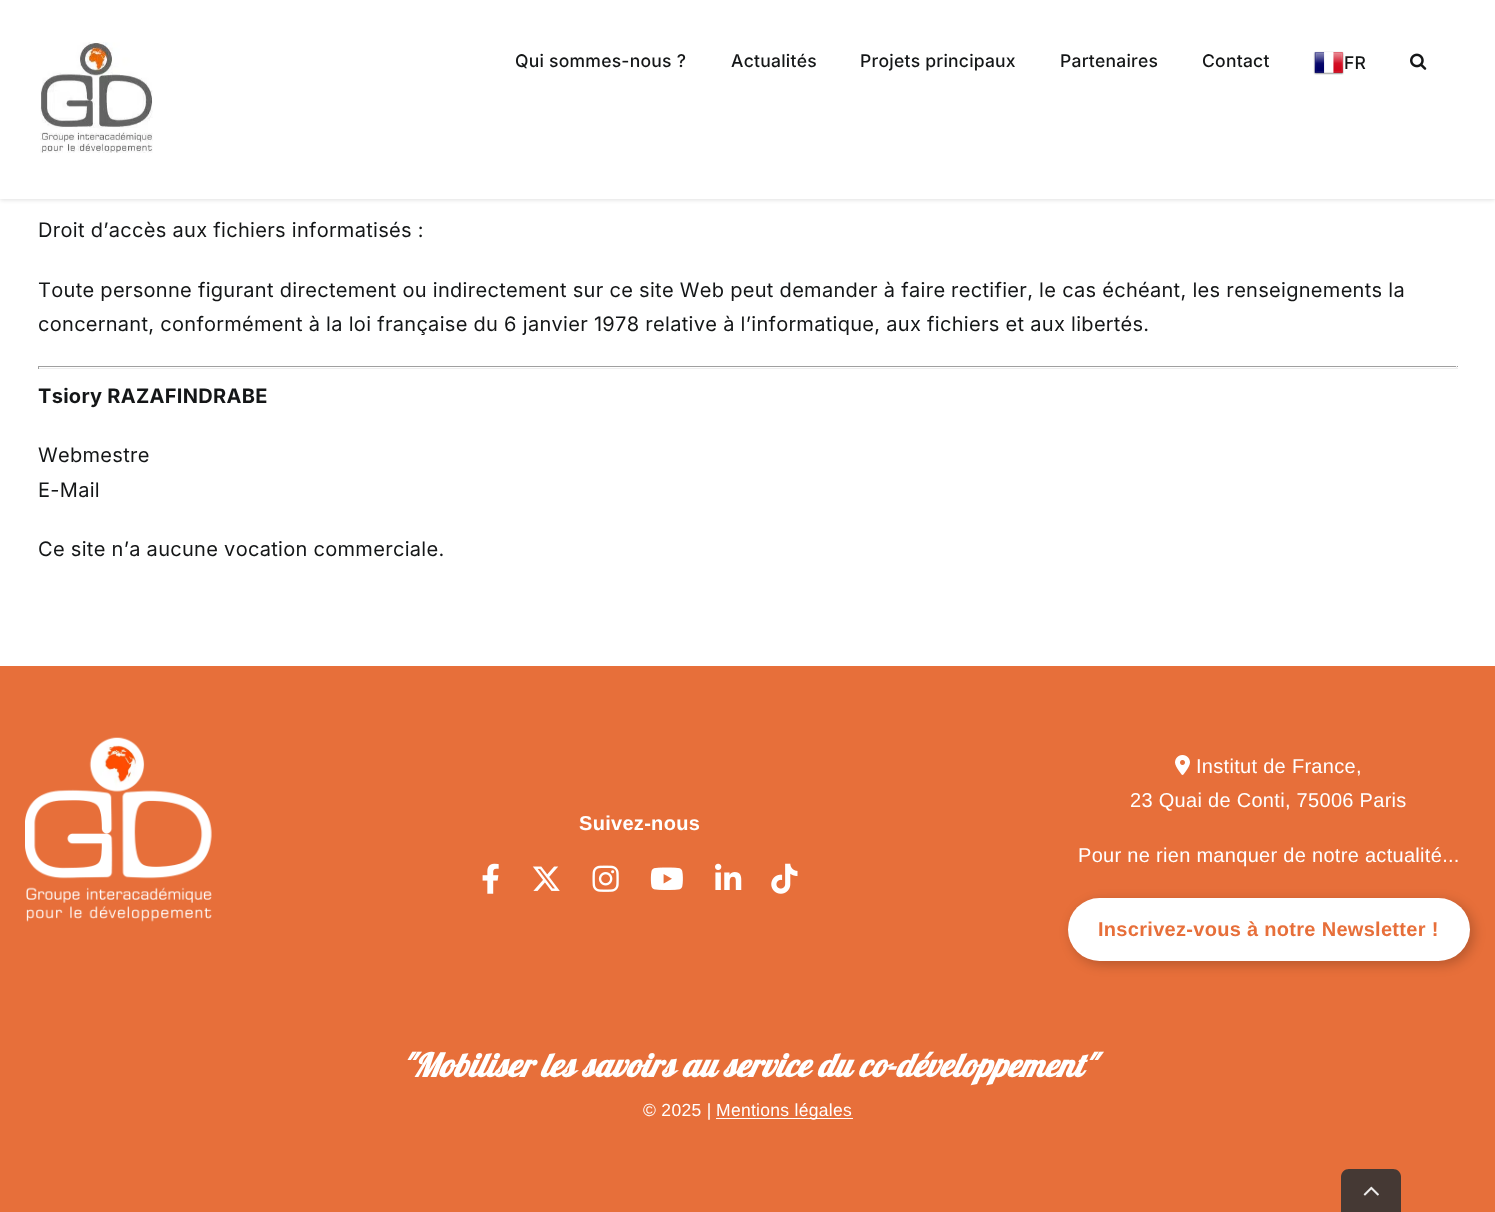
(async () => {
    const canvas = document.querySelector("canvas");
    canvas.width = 1495;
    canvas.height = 1212;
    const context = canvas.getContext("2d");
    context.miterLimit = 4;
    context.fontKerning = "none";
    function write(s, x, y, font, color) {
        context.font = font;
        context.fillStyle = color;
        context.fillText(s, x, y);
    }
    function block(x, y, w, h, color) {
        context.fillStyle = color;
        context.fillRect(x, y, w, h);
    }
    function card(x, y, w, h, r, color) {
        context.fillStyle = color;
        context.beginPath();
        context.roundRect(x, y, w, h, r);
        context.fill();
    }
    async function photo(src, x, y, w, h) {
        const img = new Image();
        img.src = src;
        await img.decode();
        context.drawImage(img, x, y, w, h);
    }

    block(0, 0, 1495, 1212, "rgb(255, 255, 255)");
    context.fillStyle = "rgba(0, 0, 0, 0.12)";
    context.filter = "blur(2px)";
    context.beginPath();
    context.rect(0, 1, 1495, 199);
    context.fill();
    context.filter = "none";
    block(0, 0, 1495, 199, "rgb(255, 255, 255)");
    await photo("media/1.png", 40, 42, 113, 111);
    context.letterSpacing = "0.25px";
    write("Qui sommes-nous ?", 515, 67, "500 17.5px Inter", "rgb(20, 22, 23)");
    write("Actualités", 731, 67, "500 17.5px Inter", "rgb(20, 22, 23)");
    write("Projets principaux", 860, 67, "500 17.5px Inter", "rgb(20, 22, 23)");
    write("Partenaires", 1060, 67, "500 17.5px Inter", "rgb(20, 22, 23)");
    write("Contact", 1202, 67, "500 17.5px Inter", "rgb(20, 22, 23)");
    await photo("media/2.png", 1313, 51, 31, 24);
    write("FR", 1344, 69, "500 17.5px Inter", "rgb(20, 22, 23)");
    await photo("media/3.png", 1410, 53, 17, 17);
    context.letterSpacing = "0.3px";
    write("Droit d’accès aux fichiers informatisés :", 38, 237, "20px Inter", "rgb(20, 22, 23)");
    write("Toute personne figurant directement ou indirectement sur ce site Web peut demander à faire", 38, 297, "20px Inter", "rgb(20, 22, 23)");
    write("rectifier, le cas échéant, les renseignements la", 951, 297, "20px Inter", "rgb(20, 22, 23)");
    write("concernant, conformément à la loi française du 6 janvier 1978 relative à l’informatique, aux fichiers et aux libertés.", 38, 331, "20px Inter", "rgb(20, 22, 23)");
    block(38, 366, 1420, 1, "rgb(159, 159, 159)");
    block(1456, 366, 1, 3, "rgb(238, 238, 238)");
    block(38, 368, 1420, 1, "rgb(238, 238, 238)");
    block(38, 366, 1, 3, "rgb(159, 159, 159)");
    write("Tsiory RAZAFINDRABE", 38, 403, "bold 20px Inter", "rgb(20, 22, 23)");
    write("Webmestre", 38, 462, "20px Inter", "rgb(20, 22, 23)");
    write("E-Mail", 38, 497, "20px Inter", "rgb(20, 22, 23)");
    write("Ce site n’a aucune vocation commerciale.", 38, 556, "20px Inter", "rgb(20, 22, 23)");
    block(0, 666, 1495, 546, "rgb(231, 111, 58)");
    await photo("media/4.png", 25, 737, 187, 185);
    write("Suivez-nous", 579, 830, "bold 20px Liberation Sans", "rgb(255, 255, 255)");
    await photo("media/5.png", 482, 863, 17, 31);
    await photo("media/6.png", 532, 866, 28, 25);
    await photo("media/7.png", 592, 865, 27, 27);
    await photo("media/8.png", 650, 867, 33, 23);
    await photo("media/9.png", 715, 863, 27, 27);
    await photo("media/10.png", 771, 863, 27, 31);
    await photo("media/11.png", 1175, 755, 15, 20);
    write("Institut de France,", 1196, 773, "20px Liberation Sans", "rgb(255, 255, 255)");
    write("23 Quai de Conti, 75006 Paris", 1130, 807, "20px Liberation Sans", "rgb(255, 255, 255)");
    write("Pour ne rien manquer de notre actualité...", 1078, 862, "20px Liberation Sans", "rgb(255, 255, 255)");
    context.fillStyle = "rgba(0, 0, 0, 0.2)";
    context.filter = "blur(6px)";
    context.beginPath();
    context.roundRect(1071, 901, 403, 64, 32);
    context.fill();
    context.filter = "none";
    card(1068, 898, 402, 63, 31.5, "rgb(255, 255, 255)");
    write("Inscrivez-vous à notre Newsletter !", 1098, 936, "bold 20px Liberation Sans", "rgb(231, 111, 58)");
    write("\"Mobiliser les savoirs au service du co-développement\"", 401, 1077, "italic bold 32.5px Lobster", "rgb(255, 255, 255)");
    write("© 2025 |", 643, 1116, "17.5px Liberation Sans", "rgb(255, 255, 255)");
    block(716, 1118, 137, 1, "rgb(255, 255, 255)");
    write("Mentions légales", 716, 1116, "17.5px Liberation Sans", "rgb(255, 255, 255)");
    context.fillStyle = "rgb(69, 57, 52)";
    context.beginPath();
    context.moveTo(1349, 1169);
    context.lineTo(1393, 1169);
    context.bezierCurveTo(1397.5, 1169, 1401, 1172.5, 1401, 1177);
    context.lineTo(1401, 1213);
    context.lineTo(1341, 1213);
    context.lineTo(1341, 1177);
    context.bezierCurveTo(1341, 1172.5, 1344.5, 1169, 1349, 1169);
    context.closePath();
    context.fill();
    await photo("media/12.png", 1363, 1186, 16, 10);
})();
